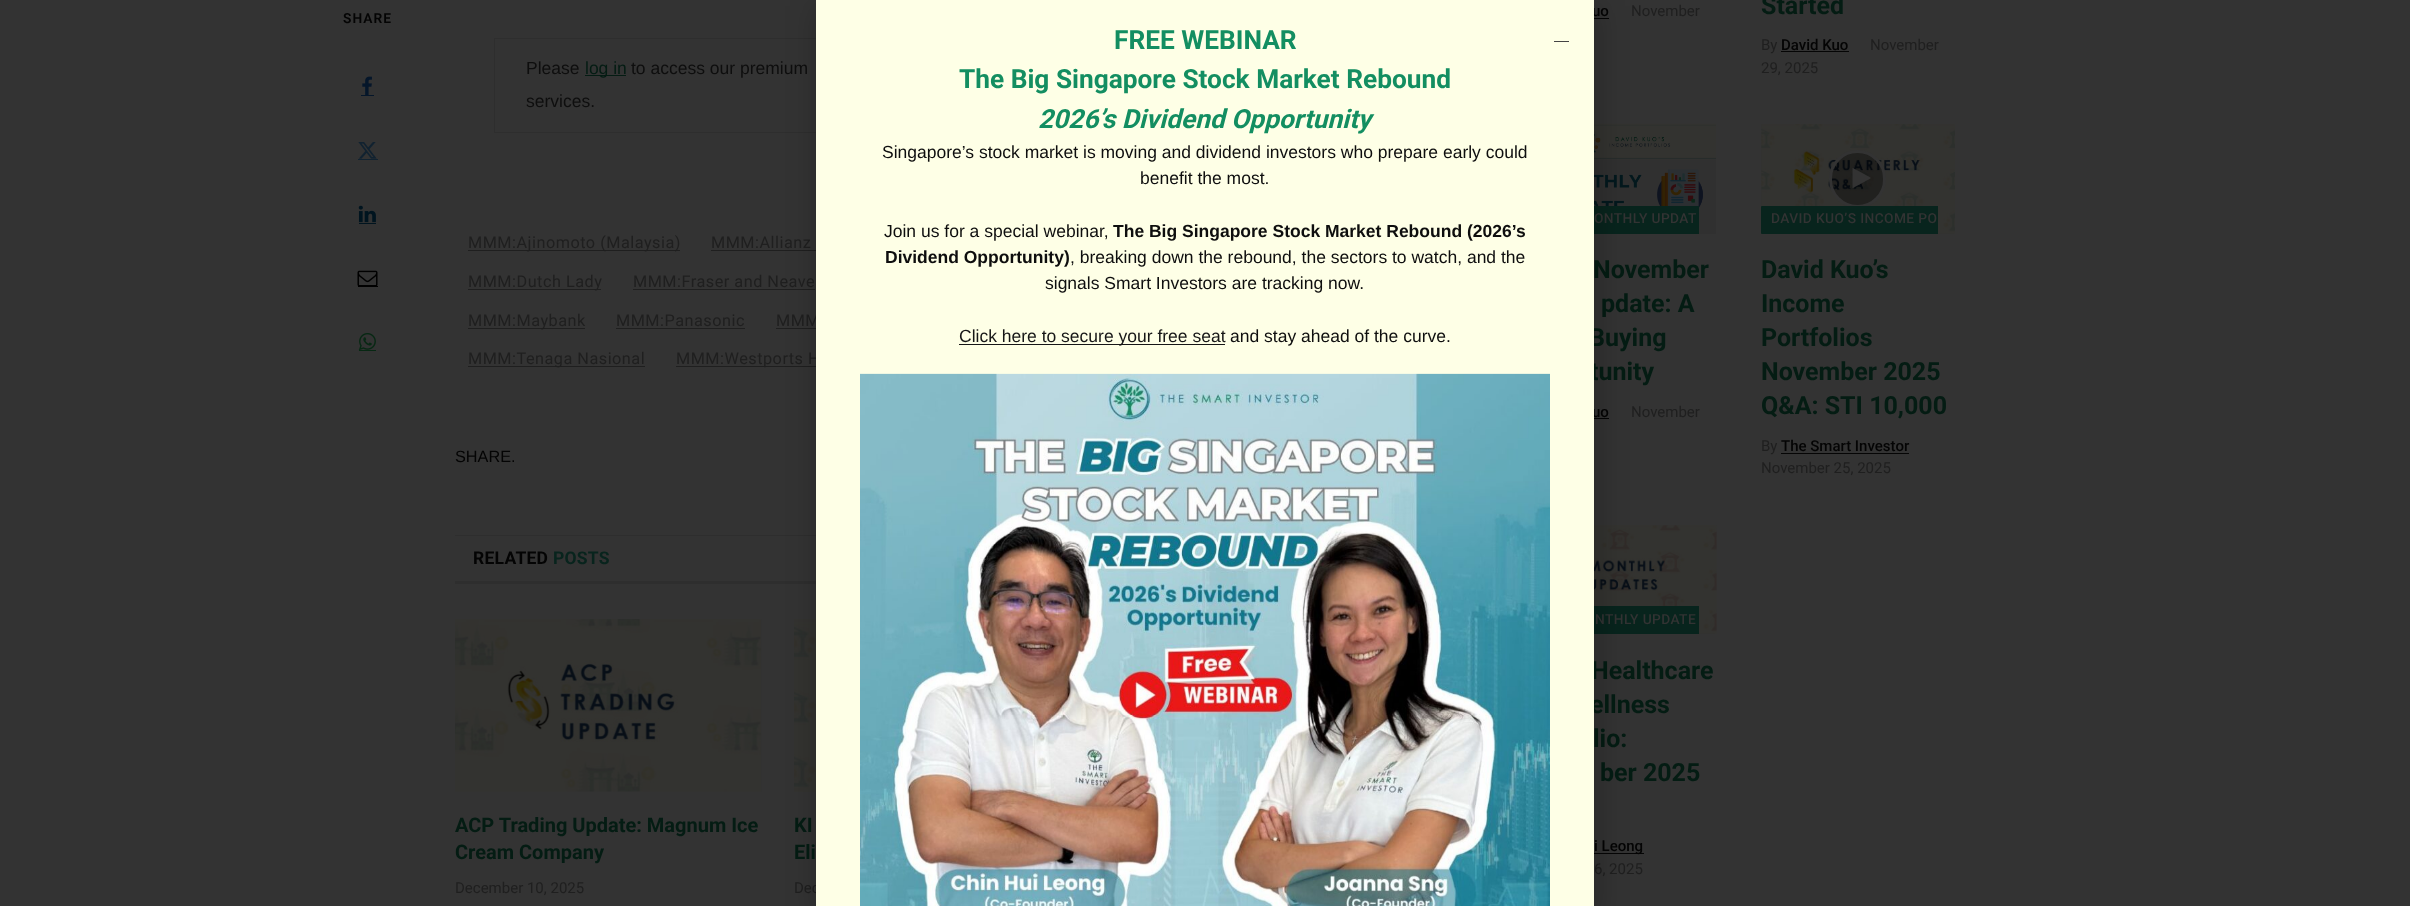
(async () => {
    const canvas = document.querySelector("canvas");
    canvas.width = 2410;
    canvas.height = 906;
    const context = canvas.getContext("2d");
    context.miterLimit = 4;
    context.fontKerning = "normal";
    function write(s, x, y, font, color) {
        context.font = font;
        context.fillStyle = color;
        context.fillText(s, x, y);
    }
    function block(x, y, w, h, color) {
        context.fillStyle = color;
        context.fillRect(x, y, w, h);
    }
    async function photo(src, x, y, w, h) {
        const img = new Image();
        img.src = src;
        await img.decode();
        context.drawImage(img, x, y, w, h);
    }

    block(0, 0, 2410, 906, "rgb(51, 51, 51)");
    context.letterSpacing = "1px";
    write("SHARE", 343, 23, "600 13.75px Roboto", "rgb(4, 4, 4)");
    await photo("media/1.png", 362, 76, 10, 19);
    block(361, 95, 13, 1, "rgb(5, 22, 42)");
    await photo("media/2.png", 358, 142, 19, 17);
    block(358, 159, 20, 1, "rgb(17, 34, 48)");
    await photo("media/3.png", 358, 205, 18, 18);
    block(359, 223, 17, 1, "rgb(0, 20, 31)");
    await photo("media/4.png", 357, 270, 21, 16);
    block(358, 286, 20, 1, "rgb(0, 0, 0)");
    block(359, 350, 17, 1, "rgb(7, 40, 19)");
    await photo("media/5.png", 358, 333, 18, 18);
    context.strokeStyle = "rgb(46, 46, 46)";
    context.strokeRect(494.5, 38.5, 906, 94);
    context.letterSpacing = "0px";
    write("Please", 526, 74, "17.5px Liberation Sans", "rgb(14, 14, 14)");
    block(585, 75, 41, 1, "rgb(4, 28, 19)");
    write("log in", 585, 74, "17.5px Liberation Sans", "rgb(4, 28, 19)");
    write("to access our premium", 631, 74, "17.5px Liberation Sans", "rgb(14, 14, 14)");
    write("services.", 526, 107, "17.5px Liberation Sans", "rgb(14, 14, 14)");
    block(468, 250, 212, 1, "rgb(31, 31, 31)");
    context.letterSpacing = "0.5px";
    write("MMM:Ajinomoto (Malaysia)", 468, 248, "16.25px Roboto", "rgb(31, 31, 31)");
    write("MMM:Allianz", 711, 248, "16.25px Roboto", "rgb(31, 31, 31)");
    block(711, 250, 105, 1, "rgb(31, 31, 31)");
    block(468, 289, 133, 1, "rgb(31, 31, 31)");
    write("MMM:Dutch Lady", 468, 287, "16.25px Roboto", "rgb(31, 31, 31)");
    write("MMM:Fraser and Neave", 633, 287, "16.25px Roboto", "rgb(31, 31, 31)");
    block(633, 289, 182, 1, "rgb(31, 31, 31)");
    block(468, 328, 117, 1, "rgb(31, 31, 31)");
    write("MMM:Maybank", 468, 326, "16.25px Roboto", "rgb(31, 31, 31)");
    write("MMM:Panasonic", 616, 326, "16.25px Roboto", "rgb(31, 31, 31)");
    block(616, 328, 129, 1, "rgb(31, 31, 31)");
    write("MMM", 776, 326, "16.25px Roboto", "rgb(31, 31, 31)");
    block(776, 328, 40, 1, "rgb(31, 31, 31)");
    block(468, 366, 177, 1, "rgb(31, 31, 31)");
    write("MMM:Tenaga Nasional", 468, 364, "16.25px Roboto", "rgb(31, 31, 31)");
    block(676, 366, 140, 1, "rgb(31, 31, 31)");
    write("MMM:Westports H", 676, 364, "16.25px Roboto", "rgb(31, 31, 31)");
    context.letterSpacing = "0px";
    write("SHARE.", 455, 462, "16.25px Liberation Sans", "rgb(4, 4, 4)");
    block(455, 535, 361, 1, "rgb(46, 46, 46)");
    block(455, 581, 361, 3, "rgb(46, 46, 46)");
    context.letterSpacing = "0.25px";
    write("RELATED", 473, 564, "bold 17.5px Roboto", "rgb(4, 4, 4)");
    write("POSTS", 553, 564, "bold 17.5px Roboto", "rgb(8, 36, 29)");
    await photo("media/6.png", 455, 619, 307, 173);
    context.letterSpacing = "0px";
    write("ACP Trading Update: Magnum Ice", 455, 832, "bold 20px Roboto", "rgb(4, 28, 19)");
    write("Cream Company", 455, 859, "bold 20px Roboto", "rgb(4, 28, 19)");
    write("December 10, 2025", 455, 893, "15px Roboto", "rgb(31, 31, 31)");
    await photo("media/7.png", 794, 619, 22, 173);
    write("KI", 794, 832, "bold 20px Roboto", "rgb(4, 28, 19)");
    write("Eli", 794, 859, "bold 20px Roboto", "rgb(4, 28, 19)");
    write("Dec", 794, 893, "15px Roboto", "rgb(31, 31, 31)");
    write("uo", 1592, 16, "500 15px Roboto", "rgb(4, 4, 4)");
    block(1594, 18, 15, 1, "rgb(5, 5, 5)");
    write("November", 1631, 16, "15px Roboto", "rgb(31, 31, 31)");
    write("Started", 1761, 14, "bold 25px Roboto", "rgb(4, 28, 19)");
    write("By", 1761, 50, "15px Roboto", "rgb(31, 31, 31)");
    block(1781, 51, 68, 1, "rgb(5, 5, 5)");
    write("David Kuo", 1781, 50, "500 15px Roboto", "rgb(4, 4, 4)");
    write("November", 1870, 50, "15px Roboto", "rgb(31, 31, 31)");
    write("29, 2025", 1761, 73, "15px Roboto", "rgb(31, 31, 31)");
    await photo("media/8.png", 1594, 123, 122, 111);
    block(1594, 206, 105, 28, "rgb(8, 36, 29)");
    context.letterSpacing = "0.4px";
    write("ONTHLY UPDAT", 1594, 223, "500 13.75px Roboto", "rgb(51, 51, 51)");
    context.letterSpacing = "0px";
    write("November", 1593, 278, "bold 25px Roboto", "rgb(4, 28, 19)");
    write("pdate: A", 1601, 312, "bold 25px Roboto", "rgb(4, 28, 19)");
    write("Buying", 1589, 346, "bold 25px Roboto", "rgb(4, 28, 19)");
    write("tunity", 1590, 380, "bold 25px Roboto", "rgb(4, 28, 19)");
    write("uo", 1592, 417, "500 15px Roboto", "rgb(4, 4, 4)");
    block(1594, 418, 15, 1, "rgb(5, 5, 5)");
    write("November", 1631, 417, "15px Roboto", "rgb(31, 31, 31)");
    await photo("media/9.png", 1761, 124, 194, 110);
    context.fillStyle = "rgba(0, 0, 0, 0.35)";
    context.beginPath();
    context.roundRect(1830.5, 151.5, 54, 55, 27);
    context.fill();
    context.strokeStyle = "rgb(51, 51, 51)";
    context.lineWidth = 3;
    context.stroke();
    context.fillStyle = "rgb(51, 51, 51)";
    context.beginPath();
    context.moveTo(1870.5, 178.5);
    context.lineTo(1853, 188);
    context.lineTo(1852.5, 188);
    context.lineTo(1852.5, 168);
    context.lineTo(1853, 168);
    context.lineTo(1870.5, 177.5);
    context.closePath();
    context.fill();
    context.fillStyle = "rgb(8, 36, 29)";
    context.beginPath();
    context.roundRect(1761, 206, 177, 28, [1, 0, 0, 1]);
    context.fill();
    context.letterSpacing = "0.4px";
    write("DAVID KUO’S INCOME PO", 1771, 223, "500 13.75px Roboto", "rgb(51, 51, 51)");
    context.letterSpacing = "0px";
    write("David Kuo’s", 1761, 278, "bold 25px Roboto", "rgb(4, 28, 19)");
    write("Income", 1761, 312, "bold 25px Roboto", "rgb(4, 28, 19)");
    write("Portfolios", 1761, 346, "bold 25px Roboto", "rgb(4, 28, 19)");
    write("November 2025", 1761, 380, "bold 25px Roboto", "rgb(4, 28, 19)");
    write("Q&A: STI 10,000", 1761, 414, "bold 25px Roboto", "rgb(4, 28, 19)");
    write("By", 1761, 451, "15px Roboto", "rgb(31, 31, 31)");
    block(1781, 453, 128, 1, "rgb(5, 5, 5)");
    write("The Smart Investor", 1781, 451, "500 15px Roboto", "rgb(4, 4, 4)");
    write("November 25, 2025", 1761, 473, "15px Roboto", "rgb(31, 31, 31)");
    await photo("media/10.png", 1594, 525, 123, 109);
    block(1594, 606, 105, 28, "rgb(8, 36, 29)");
    context.letterSpacing = "0.4px";
    write("NTHLY UPDATE", 1595, 624, "500 13.75px Roboto", "rgb(51, 51, 51)");
    context.letterSpacing = "0px";
    write("Healthcare", 1591, 679, "bold 25px Roboto", "rgb(4, 28, 19)");
    write("ellness", 1590, 713, "bold 25px Roboto", "rgb(4, 28, 19)");
    write("lio:", 1593, 747, "bold 25px Roboto", "rgb(4, 28, 19)");
    write("ber 2025", 1600, 781, "bold 25px Roboto", "rgb(4, 28, 19)");
    block(1594, 853, 50, 1, "rgb(5, 5, 5)");
    write("i Leong", 1594, 851, "500 15px Roboto", "rgb(4, 4, 4)");
    write("6, 2025", 1594, 874, "15px Roboto", "rgb(31, 31, 31)");
    context.fillStyle = "rgba(0, 0, 0, 0.2)";
    context.filter = "blur(14.5px)";
    context.beginPath();
    context.rect(815, 6, 785, 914);
    context.fill();
    context.filter = "none";
    block(816, 0, 778, 906, "rgb(254, 255, 230)");
    write("FREE WEBINAR", 1114, 49, "bold 26.25px Roboto", "rgb(19, 142, 97)");
    write("The Big Singapore Stock Market Rebound", 959, 88, "bold 26.25px Roboto", "rgb(19, 142, 97)");
    write("2026’s Dividend Opportunity", 1038, 128, "italic bold 26.25px Roboto", "rgb(19, 142, 97)");
    write("Singapore’s stock market is moving and dividend investors who prepare early could", 882, 158, "17.5px Liberation Sans", "rgb(14, 14, 14)");
    write("benefit the most.", 1140, 184, "17.5px Liberation Sans", "rgb(14, 14, 14)");
    write("Join us for a special webinar,", 884, 237, "17.5px Liberation Sans", "rgb(14, 14, 14)");
    write("The Big Singapore Stock Market Rebound (2026’s", 1113, 237, "bold 17.5px Liberation Sans", "rgb(14, 14, 14)");
    write("Dividend Opportunity)", 885, 263, "bold 17.5px Liberation Sans", "rgb(14, 14, 14)");
    write(", breaking down the rebound, the sectors to watch, and the", 1070, 263, "17.5px Liberation Sans", "rgb(14, 14, 14)");
    write("signals Smart Investors are tracking now.", 1045, 289, "17.5px Liberation Sans", "rgb(14, 14, 14)");
    block(959, 344, 266, 1, "rgb(22, 22, 22)");
    write("Click here to secure your free seat", 959, 342, "17.5px Liberation Sans", "rgb(22, 22, 22)");
    write("and stay ahead of the curve.", 1230, 342, "17.5px Liberation Sans", "rgb(14, 14, 14)");
    await photo("media/11.png", 860, 373, 690, 533);
    block(1554, 41, 15, 1, "rgb(68, 68, 68)");
})();
